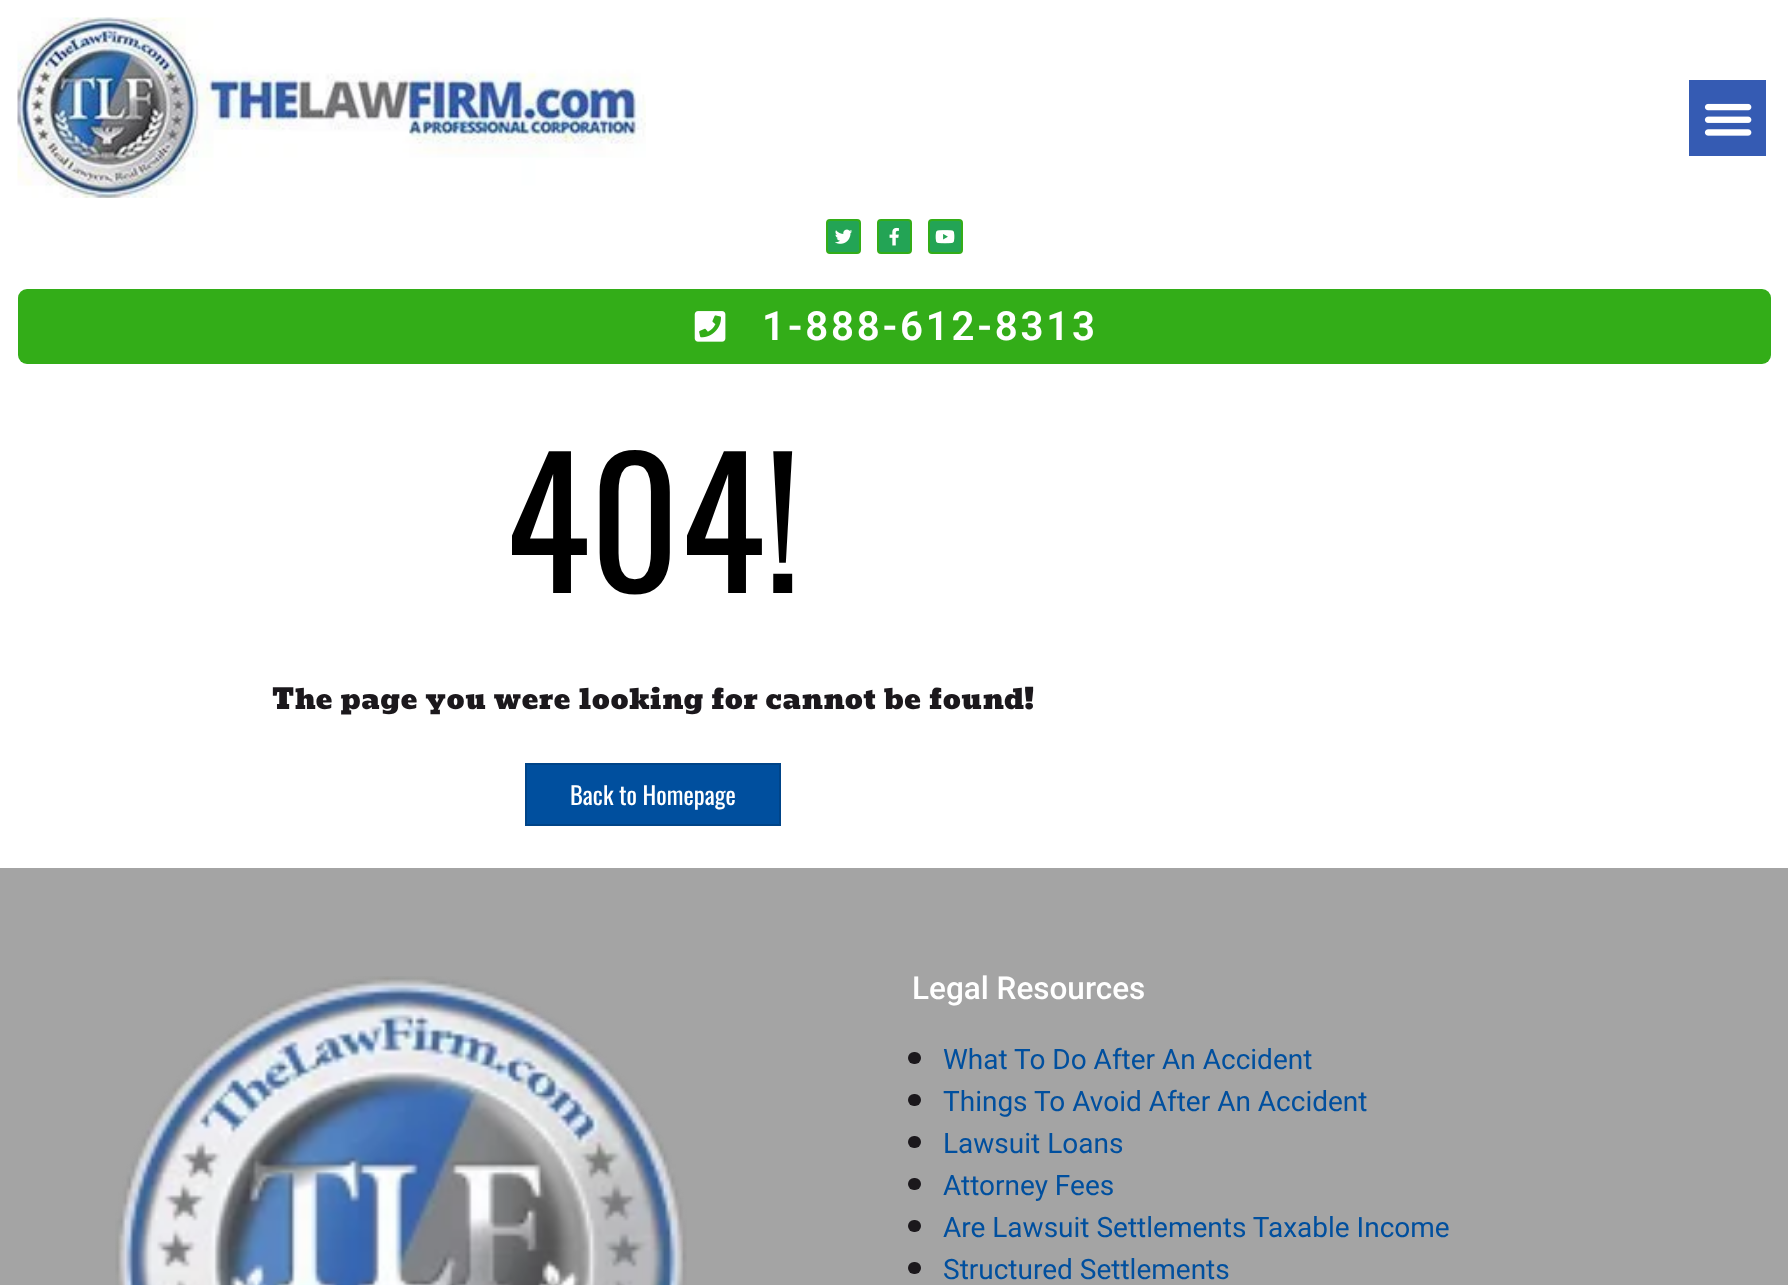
(async () => {
    const canvas = document.querySelector("canvas");
    canvas.width = 1788;
    canvas.height = 1285;
    const context = canvas.getContext("2d");
    context.miterLimit = 4;
    context.fontKerning = "normal";
    function write(s, x, y, font, color) {
        context.font = font;
        context.fillStyle = color;
        context.fillText(s, x, y);
    }
    function block(x, y, w, h, color) {
        context.fillStyle = color;
        context.fillRect(x, y, w, h);
    }
    function card(x, y, w, h, r, color) {
        context.fillStyle = color;
        context.beginPath();
        context.roundRect(x, y, w, h, r);
        context.fill();
    }
    async function photo(src, x, y, w, h) {
        const img = new Image();
        img.src = src;
        await img.decode();
        context.drawImage(img, x, y, w, h);
    }

    block(0, 0, 1788, 1285, "rgb(255, 255, 255)");
    await photo("media/1.png", 17, 17, 629, 181);
    context.fillStyle = "rgb(53, 91, 179)";
    context.beginPath();
    context.roundRect(1686.5, 77.5, 82, 81, 2.5);
    context.fill();
    context.strokeStyle = "rgb(255, 255, 255)";
    context.lineWidth = 5;
    context.stroke();
    await photo("media/2.png", 1704, 103, 48, 33);
    context.fillStyle = "rgb(35, 164, 85)";
    context.beginPath();
    context.roundRect(827, 220, 33, 33, 3);
    context.fill();
    context.strokeStyle = "rgb(51, 173, 24)";
    context.lineWidth = 2;
    context.stroke();
    await photo("media/3.png", 835, 229, 18, 15);
    context.beginPath();
    context.roundRect(878, 220, 33, 33, 3);
    context.fill();
    context.stroke();
    await photo("media/4.png", 889, 227, 10, 19);
    context.beginPath();
    context.roundRect(929, 220, 33, 33, 3);
    context.fill();
    context.stroke();
    await photo("media/5.png", 935, 230, 20, 14);
    card(18, 289, 1753, 75, 9, "rgb(51, 173, 24)");
    await photo("media/6.png", 694, 311, 32, 31);
    context.letterSpacing = "2.75px";
    write("1-888-612-8313", 762, 340, "600 40.25px Roboto", "rgb(255, 255, 255)");
    context.letterSpacing = "0px";
    write("404!", 505, 593, "175px Oswald", "rgb(0, 0, 0)");
    write("The page you were looking for cannot be found!", 272, 709, "28px Moul", "rgb(27, 24, 28)");
    context.fillStyle = "rgb(0, 79, 158)";
    context.beginPath();
    context.rect(526, 764, 254, 61);
    context.fill();
    context.strokeStyle = "rgb(0, 68, 136)";
    context.stroke();
    write("Back to Homepage", 570, 805, "24.5px Oswald", "rgb(255, 255, 255)");
    block(0, 868, 1788, 417, "rgb(164, 164, 164)");
    await photo("media/7.png", 115, 976, 572, 309);
    write("Legal Resources", 912, 999, "500 31.5px Roboto", "rgb(255, 255, 255)");
    card(908, 1052, 13, 12, 6, "rgb(27, 24, 28)");
    write("What To Do After An Accident", 943, 1069, "28px Roboto", "rgb(0, 79, 158)");
    card(908, 1094, 13, 12, 6, "rgb(27, 24, 28)");
    write("Things To Avoid After An Accident", 943, 1111, "28px Roboto", "rgb(0, 79, 158)");
    card(908, 1136, 13, 12, 6, "rgb(27, 24, 28)");
    write("Lawsuit Loans", 943, 1153, "28px Roboto", "rgb(0, 79, 158)");
    card(908, 1178, 13, 12, 6, "rgb(27, 24, 28)");
    write("Attorney Fees", 943, 1195, "28px Roboto", "rgb(0, 79, 158)");
    card(908, 1220, 13, 12, 6, "rgb(27, 24, 28)");
    write("Are Lawsuit Settlements Taxable Income", 943, 1237, "28px Roboto", "rgb(0, 79, 158)");
    card(908, 1262, 13, 12, 6, "rgb(27, 24, 28)");
    write("Structured Settlements", 943, 1279, "28px Roboto", "rgb(0, 79, 158)");
})();
